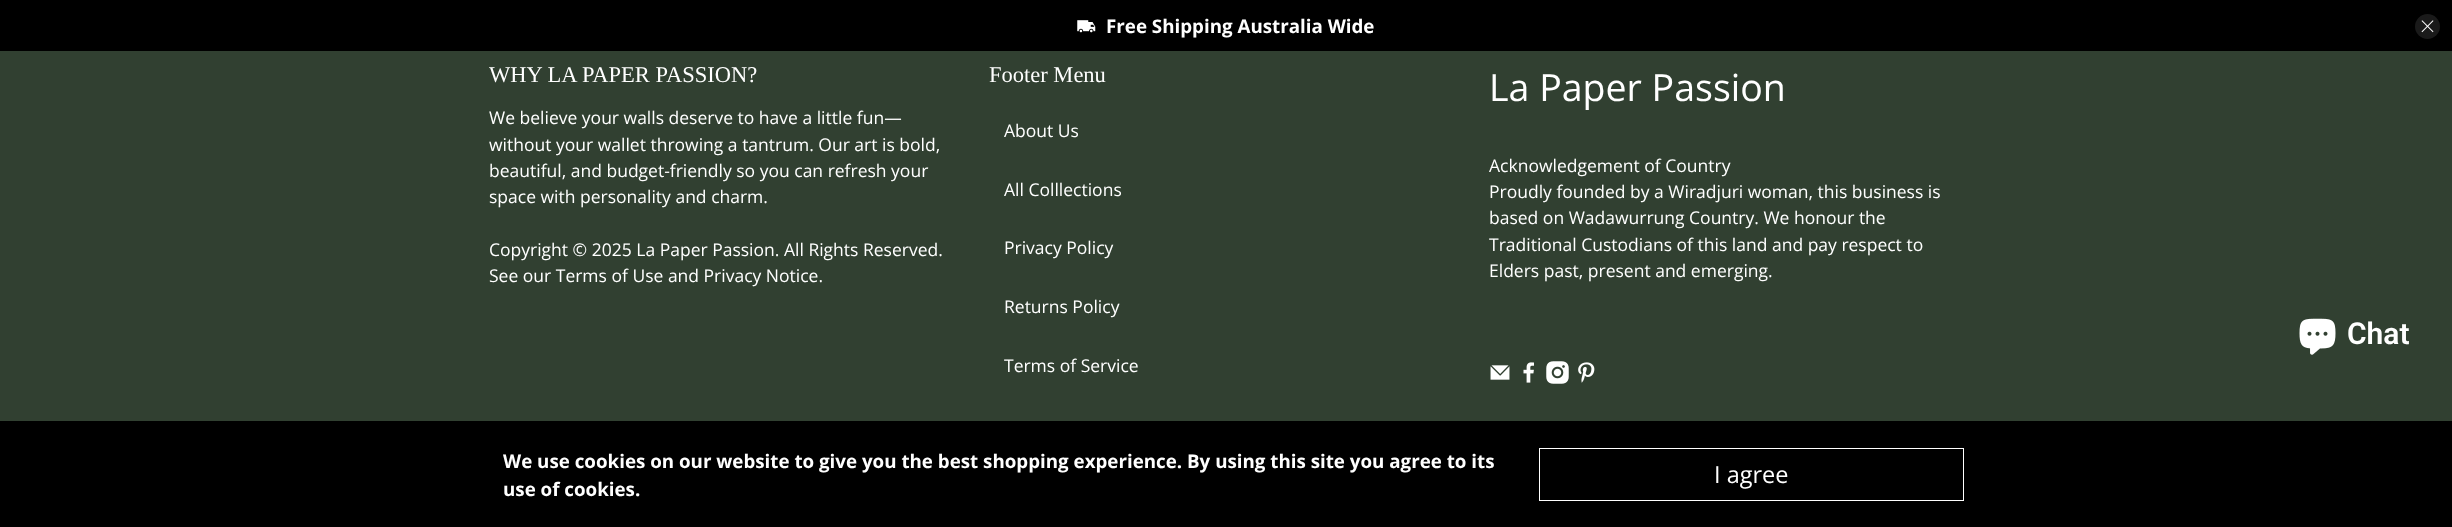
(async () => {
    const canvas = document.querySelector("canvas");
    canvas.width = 2452;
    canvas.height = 527;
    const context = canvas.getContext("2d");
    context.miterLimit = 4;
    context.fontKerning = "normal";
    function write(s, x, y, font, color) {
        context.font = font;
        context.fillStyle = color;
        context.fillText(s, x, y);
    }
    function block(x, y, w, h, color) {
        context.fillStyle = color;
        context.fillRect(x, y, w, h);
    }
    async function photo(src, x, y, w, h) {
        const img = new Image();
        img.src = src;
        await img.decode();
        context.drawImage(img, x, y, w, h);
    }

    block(0, 0, 2452, 527, "rgb(49, 64, 49)");
    block(0, 0, 2452, 51, "rgb(0, 0, 0)");
    await photo("media/1.png", 1077, 20, 19, 13);
    write("Free Shipping Australia Wide", 1106, 33, "bold 18.75px Open Sans", "rgb(255, 255, 255)");
    context.fillStyle = "rgb(26, 26, 26)";
    context.beginPath();
    context.arc(2427.5, 26.5, 12.5, 0, Math.PI * 2);
    context.fill();
    await photo("media/2.png", 2421, 20, 13, 13);
    write("WHY LA PAPER PASSION?", 489, 82, "22.5px Liberation Serif", "rgb(255, 255, 255)");
    write("We believe your walls deserve to have a little fun—", 489, 124, "17.5px Open Sans", "rgb(255, 255, 255)");
    write("without your wallet throwing a tantrum. Our art is bold,", 489, 151, "17.5px Open Sans", "rgb(255, 255, 255)");
    write("beautiful, and budget-friendly so you can refresh your", 489, 177, "17.5px Open Sans", "rgb(255, 255, 255)");
    write("space with personality and charm.", 489, 203, "17.5px Open Sans", "rgb(255, 255, 255)");
    write("Copyright © 2025 La Paper Passion. All Rights Reserved.", 489, 256, "17.5px Open Sans", "rgb(255, 255, 255)");
    write("See our Terms of Use and Privacy Notice.", 489, 282, "17.5px Open Sans", "rgb(255, 255, 255)");
    write("Footer Menu", 989, 82, "22.5px Liberation Serif", "rgb(255, 255, 255)");
    write("About Us", 1004, 137, "17.5px Open Sans", "rgb(255, 255, 255)");
    write("All Colllections", 1004, 196, "17.5px Open Sans", "rgb(255, 255, 255)");
    write("Privacy Policy", 1004, 254, "17.5px Open Sans", "rgb(255, 255, 255)");
    write("Returns Policy", 1004, 313, "17.5px Open Sans", "rgb(255, 255, 255)");
    write("Terms of Service", 1004, 372, "17.5px Open Sans", "rgb(255, 255, 255)");
    write("La Paper Passion", 1489, 101, "37.5px Open Sans", "rgb(255, 255, 255)");
    write("Acknowledgement of Country", 1489, 172, "17.5px Open Sans", "rgb(255, 255, 255)");
    write("Proudly founded by a Wiradjuri woman, this business is", 1489, 198, "17.5px Open Sans", "rgb(255, 255, 255)");
    write("based on Wadawurrung Country. We honour the", 1489, 224, "17.5px Open Sans", "rgb(255, 255, 255)");
    write("Traditional Custodians of this land and pay respect to", 1489, 251, "17.5px Open Sans", "rgb(255, 255, 255)");
    write("Elders past, present and emerging.", 1489, 277, "17.5px Open Sans", "rgb(255, 255, 255)");
    await photo("media/3.png", 1490, 365, 20, 15);
    await photo("media/4.png", 1523, 362, 11, 21);
    await photo("media/5.png", 1546, 361, 23, 23);
    await photo("media/6.png", 1578, 362, 17, 21);
    await photo("media/7.png", 2299, 318, 37, 37);
    write("Chat", 2347, 344, "600 30px Roboto", "rgb(255, 255, 255)");
    block(0, 421, 2452, 106, "rgb(0, 0, 0)");
    write("We use cookies on our website to give you the best shopping experience. By using this site you agree to its", 503, 468, "bold 18.75px Open Sans", "rgb(255, 255, 255)");
    write("use of cookies.", 503, 496, "bold 18.75px Open Sans", "rgb(255, 255, 255)");
    context.strokeStyle = "rgb(255, 255, 255)";
    context.strokeRect(1539.5, 448.5, 424, 52);
    write("I agree", 1714, 483, "23.5px Open Sans", "rgb(255, 255, 255)");
})();
